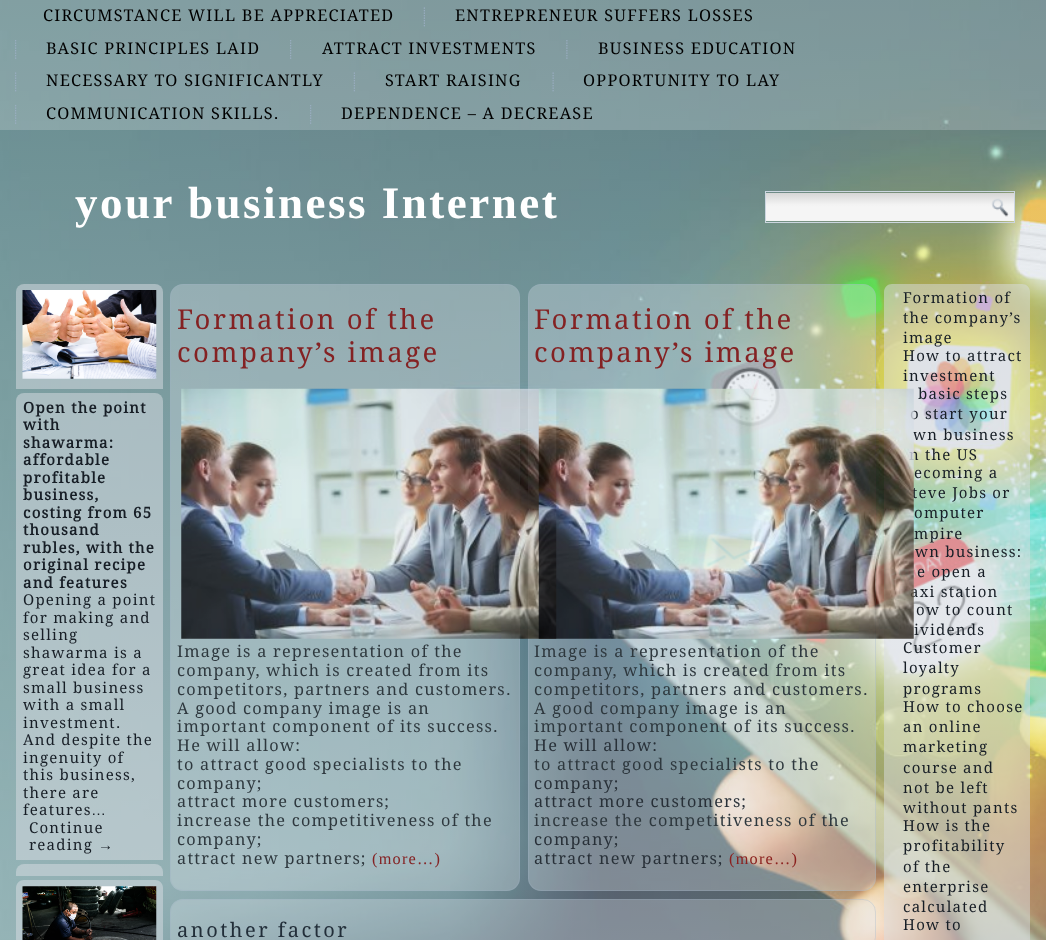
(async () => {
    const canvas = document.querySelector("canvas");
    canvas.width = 1046;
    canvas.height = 940;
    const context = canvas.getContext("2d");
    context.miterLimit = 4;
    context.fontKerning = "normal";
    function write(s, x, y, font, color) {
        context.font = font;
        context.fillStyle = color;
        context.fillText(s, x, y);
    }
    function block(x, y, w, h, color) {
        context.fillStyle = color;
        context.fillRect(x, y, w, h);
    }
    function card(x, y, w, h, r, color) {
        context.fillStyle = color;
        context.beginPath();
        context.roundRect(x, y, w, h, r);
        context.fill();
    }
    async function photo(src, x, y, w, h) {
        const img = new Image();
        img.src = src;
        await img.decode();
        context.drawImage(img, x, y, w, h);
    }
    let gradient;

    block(0, 0, 1046, 940, "rgb(255, 255, 255)");
    await photo("media/1.png", 0, 0, 1046, 940);
    block(0, 0, 1046, 130, "rgba(249, 250, 251, 0.2)");
    context.letterSpacing = "1.25px";
    write("CIRCUMSTANCE WILL BE APPRECIATED", 43, 21, "16.25px Droid Serif", "rgb(0, 0, 0)");
    await photo("media/2.png", 423, 7, 2, 20);
    write("ENTREPRENEUR SUFFERS LOSSES", 455, 21, "16.25px Droid Serif", "rgb(0, 0, 0)");
    await photo("media/3.png", 15, 40, 2, 19);
    write("BASIC PRINCIPLES LAID", 46, 54, "16.25px Droid Serif", "rgb(0, 0, 0)");
    await photo("media/4.png", 290, 40, 2, 19);
    write("ATTRACT INVESTMENTS", 322, 54, "16.25px Droid Serif", "rgb(0, 0, 0)");
    await photo("media/5.png", 566, 40, 2, 19);
    write("BUSINESS EDUCATION", 598, 54, "16.25px Droid Serif", "rgb(0, 0, 0)");
    await photo("media/6.png", 15, 72, 2, 20);
    write("NECESSARY TO SIGNIFICANTLY", 46, 86, "16.25px Droid Serif", "rgb(0, 0, 0)");
    await photo("media/7.png", 353, 72, 2, 20);
    write("START RAISING", 385, 86, "16.25px Droid Serif", "rgb(0, 0, 0)");
    await photo("media/8.png", 552, 72, 2, 20);
    write("OPPORTUNITY TO LAY", 583, 86, "16.25px Droid Serif", "rgb(0, 0, 0)");
    await photo("media/9.png", 15, 105, 2, 19);
    write("COMMUNICATION SKILLS.", 46, 119, "16.25px Droid Serif", "rgb(0, 0, 0)");
    await photo("media/10.png", 310, 105, 2, 19);
    write("DEPENDENCE – A DECREASE", 341, 119, "16.25px Droid Serif", "rgb(0, 0, 0)");
    context.letterSpacing = "2.5px";
    write("your business Internet", 75, 218, "bold 45px Liberation Serif", "rgb(255, 255, 255)");
    gradient = context.createLinearGradient(890, 193, 890, 221);
    gradient.addColorStop(0, "rgb(214, 214, 214)");
    gradient.addColorStop(0.4, "rgb(242, 242, 242)");
    gradient.addColorStop(0.5, "rgb(245, 245, 245)");
    gradient.addColorStop(1, "rgb(245, 245, 245)");
    context.fillStyle = gradient;
    context.fillRect(766, 193, 248, 28);
    context.strokeStyle = "rgb(204, 214, 224)";
    context.strokeRect(765.5, 191.5, 249, 31);
    await photo("media/11.png", 991, 198, 18, 19);
    context.fillStyle = "rgba(217, 222, 227, 0.5)";
    context.beginPath();
    context.roundRect(16, 284, 147, 105, [8, 8, 0, 0]);
    context.fill();
    await photo("media/12.png", 22, 290, 135, 89);
    context.beginPath();
    context.roundRect(16, 393, 147, 467, [8, 8, 0, 0]);
    context.fill();
    context.letterSpacing = "1.25px";
    write("Open the point", 23, 413, "bold 15px Droid Serif", "rgb(23, 30, 38)");
    write("with", 23, 430, "bold 15px Droid Serif", "rgb(23, 30, 38)");
    write("shawarma:", 23, 448, "bold 15px Droid Serif", "rgb(23, 30, 38)");
    write("affordable", 23, 465, "bold 15px Droid Serif", "rgb(23, 30, 38)");
    write("profitable", 23, 483, "bold 15px Droid Serif", "rgb(23, 30, 38)");
    write("business,", 23, 500, "bold 15px Droid Serif", "rgb(23, 30, 38)");
    write("costing from 65", 23, 518, "bold 15px Droid Serif", "rgb(23, 30, 38)");
    write("thousand", 23, 535, "bold 15px Droid Serif", "rgb(23, 30, 38)");
    write("rubles, with the", 23, 553, "bold 15px Droid Serif", "rgb(23, 30, 38)");
    write("original recipe", 23, 570, "bold 15px Droid Serif", "rgb(23, 30, 38)");
    write("and features", 23, 588, "bold 15px Droid Serif", "rgb(23, 30, 38)");
    write("Opening a point", 23, 605, "15px Droid Serif", "rgb(23, 30, 38)");
    write("for making and", 23, 623, "15px Droid Serif", "rgb(23, 30, 38)");
    write("selling", 23, 640, "15px Droid Serif", "rgb(23, 30, 38)");
    write("shawarma is a", 23, 658, "15px Droid Serif", "rgb(23, 30, 38)");
    write("great idea for a", 23, 675, "15px Droid Serif", "rgb(23, 30, 38)");
    write("small business", 23, 693, "15px Droid Serif", "rgb(23, 30, 38)");
    write("with a small", 23, 710, "15px Droid Serif", "rgb(23, 30, 38)");
    write("investment.", 23, 728, "15px Droid Serif", "rgb(23, 30, 38)");
    write("And despite the", 23, 745, "15px Droid Serif", "rgb(23, 30, 38)");
    write("ingenuity of", 23, 763, "15px Droid Serif", "rgb(23, 30, 38)");
    write("this business,", 23, 780, "15px Droid Serif", "rgb(23, 30, 38)");
    write("there are", 23, 798, "15px Droid Serif", "rgb(23, 30, 38)");
    write("features", 23, 815, "15px Droid Serif", "rgb(23, 30, 38)");
    write("…", 91, 815, "15px Liberation Sans", "rgb(23, 30, 38)");
    write("Continue", 29, 833, "15px Droid Serif", "rgb(23, 30, 38)");
    write("reading", 29, 850, "15px Droid Serif", "rgb(23, 30, 38)");
    write("→", 98, 850, "15px Liberation Sans", "rgb(23, 30, 38)");
    context.fillStyle = "rgba(217, 222, 227, 0.5)";
    context.beginPath();
    context.roundRect(16, 864, 147, 12, [8, 8, 0, 0]);
    context.fill();
    context.beginPath();
    context.moveTo(24, 880);
    context.lineTo(155, 880);
    context.bezierCurveTo(159.5, 880, 163, 883.5, 163, 888);
    context.lineTo(163, 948);
    context.lineTo(16, 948);
    context.lineTo(16, 888);
    context.bezierCurveTo(16, 883.5, 19.5, 880, 24, 880);
    context.closePath();
    context.fill();
    await photo("media/13.png", 22, 886, 135, 54);
    card(170, 284, 350, 607, 13, "rgba(226, 232, 238, 0.3)");
    context.beginPath();
    context.roundRect(170.5, 284.5, 349, 606, 12.5);
    context.strokeStyle = "rgba(156, 175, 196, 0.3)";
    context.stroke();
    context.letterSpacing = "2.5px";
    write("Formation of the", 177, 329, "27.5px Droid Serif", "rgb(132, 34, 35)");
    write("company’s image", 177, 362, "27.5px Droid Serif", "rgb(132, 34, 35)");
    card(528, 284, 348, 607, 13, "rgba(226, 232, 238, 0.3)");
    context.beginPath();
    context.roundRect(528.5, 284.5, 347, 606, 12.5);
    context.stroke();
    await photo("media/14.png", 181, 388, 376, 251);
    context.letterSpacing = "1.25px";
    write("Image is a representation of the", 177, 657, "16.25px Droid Serif", "rgb(46, 56, 62)");
    write("company, which is created from its", 177, 676, "16.25px Droid Serif", "rgb(46, 56, 62)");
    write("competitors, partners and customers.", 177, 695, "16.25px Droid Serif", "rgb(46, 56, 62)");
    write("A good company image is an", 177, 714, "16.25px Droid Serif", "rgb(46, 56, 62)");
    write("important component of its success.", 177, 732, "16.25px Droid Serif", "rgb(46, 56, 62)");
    write("He will allow:", 177, 751, "16.25px Droid Serif", "rgb(46, 56, 62)");
    write("to attract good specialists to the", 177, 770, "16.25px Droid Serif", "rgb(46, 56, 62)");
    write("company;", 177, 789, "16.25px Droid Serif", "rgb(46, 56, 62)");
    write("attract more customers;", 177, 807, "16.25px Droid Serif", "rgb(46, 56, 62)");
    write("increase the competitiveness of the", 177, 826, "16.25px Droid Serif", "rgb(46, 56, 62)");
    write("company;", 177, 845, "16.25px Droid Serif", "rgb(46, 56, 62)");
    write("attract new partners;", 177, 864, "16.25px Droid Serif", "rgb(46, 56, 62)");
    write("(more…)", 372, 864, "16.25px Liberation Serif", "rgb(132, 34, 35)");
    context.letterSpacing = "2.5px";
    write("Formation of the", 534, 329, "27.5px Droid Serif", "rgb(132, 34, 35)");
    write("company’s image", 534, 362, "27.5px Droid Serif", "rgb(132, 34, 35)");
    context.fillStyle = "rgba(217, 222, 227, 0.5)";
    context.beginPath();
    context.moveTo(892, 284);
    context.lineTo(1022, 284);
    context.bezierCurveTo(1026.5, 284, 1030, 287.5, 1030, 292);
    context.lineTo(1030, 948);
    context.lineTo(884, 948);
    context.lineTo(884, 292);
    context.bezierCurveTo(884, 287.5, 887.5, 284, 892, 284);
    context.closePath();
    context.fill();
    context.letterSpacing = "1.25px";
    write("o start your", 910, 419, "15px Droid Serif", "rgb(23, 30, 38)");
    write("wn business", 913, 440, "15px Droid Serif", "rgb(23, 30, 38)");
    write("n the US", 909, 460, "15px Droid Serif", "rgb(23, 30, 38)");
    write("teve Jobs or", 912, 498, "15px Droid Serif", "rgb(23, 30, 38)");
    write("axi station", 910, 597, "15px Droid Serif", "rgb(23, 30, 38)");
    write("ividends", 914, 635, "15px Droid Serif", "rgb(23, 30, 38)");
    await photo("media/15.png", 538, 388, 376, 251);
    write("Image is a representation of the", 534, 657, "16.25px Droid Serif", "rgb(46, 56, 62)");
    write("company, which is created from its", 534, 676, "16.25px Droid Serif", "rgb(46, 56, 62)");
    write("competitors, partners and customers.", 534, 695, "16.25px Droid Serif", "rgb(46, 56, 62)");
    write("A good company image is an", 534, 714, "16.25px Droid Serif", "rgb(46, 56, 62)");
    write("important component of its success.", 534, 732, "16.25px Droid Serif", "rgb(46, 56, 62)");
    write("He will allow:", 534, 751, "16.25px Droid Serif", "rgb(40, 48, 56)");
    write("to attract good specialists to the", 534, 770, "16.25px Droid Serif", "rgb(46, 56, 62)");
    write("company;", 534, 789, "16.25px Droid Serif", "rgb(40, 48, 56)");
    write("attract more customers;", 534, 807, "16.25px Droid Serif", "rgb(40, 48, 56)");
    write("increase the competitiveness of the", 534, 826, "16.25px Droid Serif", "rgb(46, 56, 62)");
    write("company;", 534, 845, "16.25px Droid Serif", "rgb(40, 48, 56)");
    write("attract new partners;", 534, 864, "16.25px Droid Serif", "rgb(40, 48, 56)");
    write("(more…)", 729, 864, "16.25px Liberation Serif", "rgb(139, 32, 30)");
    card(170, 899, 706, 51, 13, "rgba(226, 232, 238, 0.3)");
    context.beginPath();
    context.roundRect(170.5, 899.5, 705, 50, 12.5);
    context.stroke();
    context.letterSpacing = "2.5px";
    write("another factor", 177, 937, "20px Droid Serif", "rgb(34, 46, 57)");
    context.letterSpacing = "1.25px";
    write("Formation of", 903, 303, "15px Droid Serif", "rgb(23, 30, 38)");
    write("the company’s", 903, 323, "15px Droid Serif", "rgb(23, 30, 38)");
    write("image", 903, 343, "15px Droid Serif", "rgb(23, 30, 38)");
    write("How to attract", 903, 361, "15px Droid Serif", "rgb(23, 30, 38)");
    write("investment", 903, 381, "15px Droid Serif", "rgb(23, 30, 38)");
    write("basic steps", 918, 399, "15px Droid Serif", "rgb(23, 30, 38)");
    write("ecoming a", 914, 478, "15px Droid Serif", "rgb(23, 30, 38)");
    write("omputer", 914, 518, "15px Droid Serif", "rgb(23, 30, 38)");
    write("mpire", 914, 539, "15px Droid Serif", "rgb(23, 30, 38)");
    write("wn business:", 915, 557, "15px Droid Serif", "rgb(23, 30, 38)");
    write("e open a", 917, 577, "15px Droid Serif", "rgb(23, 30, 38)");
    write("ow to count", 916, 615, "15px Droid Serif", "rgb(23, 30, 38)");
    write("Customer", 903, 653, "15px Droid Serif", "rgb(23, 30, 38)");
    write("loyalty", 903, 673, "15px Droid Serif", "rgb(23, 30, 38)");
    write("programs", 903, 694, "15px Droid Serif", "rgb(23, 30, 38)");
    write("How to choose", 903, 712, "15px Droid Serif", "rgb(23, 30, 38)");
    write("an online", 903, 732, "15px Droid Serif", "rgb(23, 30, 38)");
    write("marketing", 903, 752, "15px Droid Serif", "rgb(23, 30, 38)");
    write("course and", 903, 773, "15px Droid Serif", "rgb(23, 30, 38)");
    write("not be left", 903, 793, "15px Droid Serif", "rgb(23, 30, 38)");
    write("without pants", 903, 813, "15px Droid Serif", "rgb(23, 30, 38)");
    write("How is the", 903, 831, "15px Droid Serif", "rgb(23, 30, 38)");
    write("profitability", 903, 851, "15px Droid Serif", "rgb(23, 30, 38)");
    write("of the", 903, 872, "15px Droid Serif", "rgb(23, 30, 38)");
    write("enterprise", 903, 892, "15px Droid Serif", "rgb(23, 30, 38)");
    write("calculated", 903, 912, "15px Droid Serif", "rgb(23, 30, 38)");
    write("How to", 903, 930, "15px Droid Serif", "rgb(23, 30, 38)");
})();
